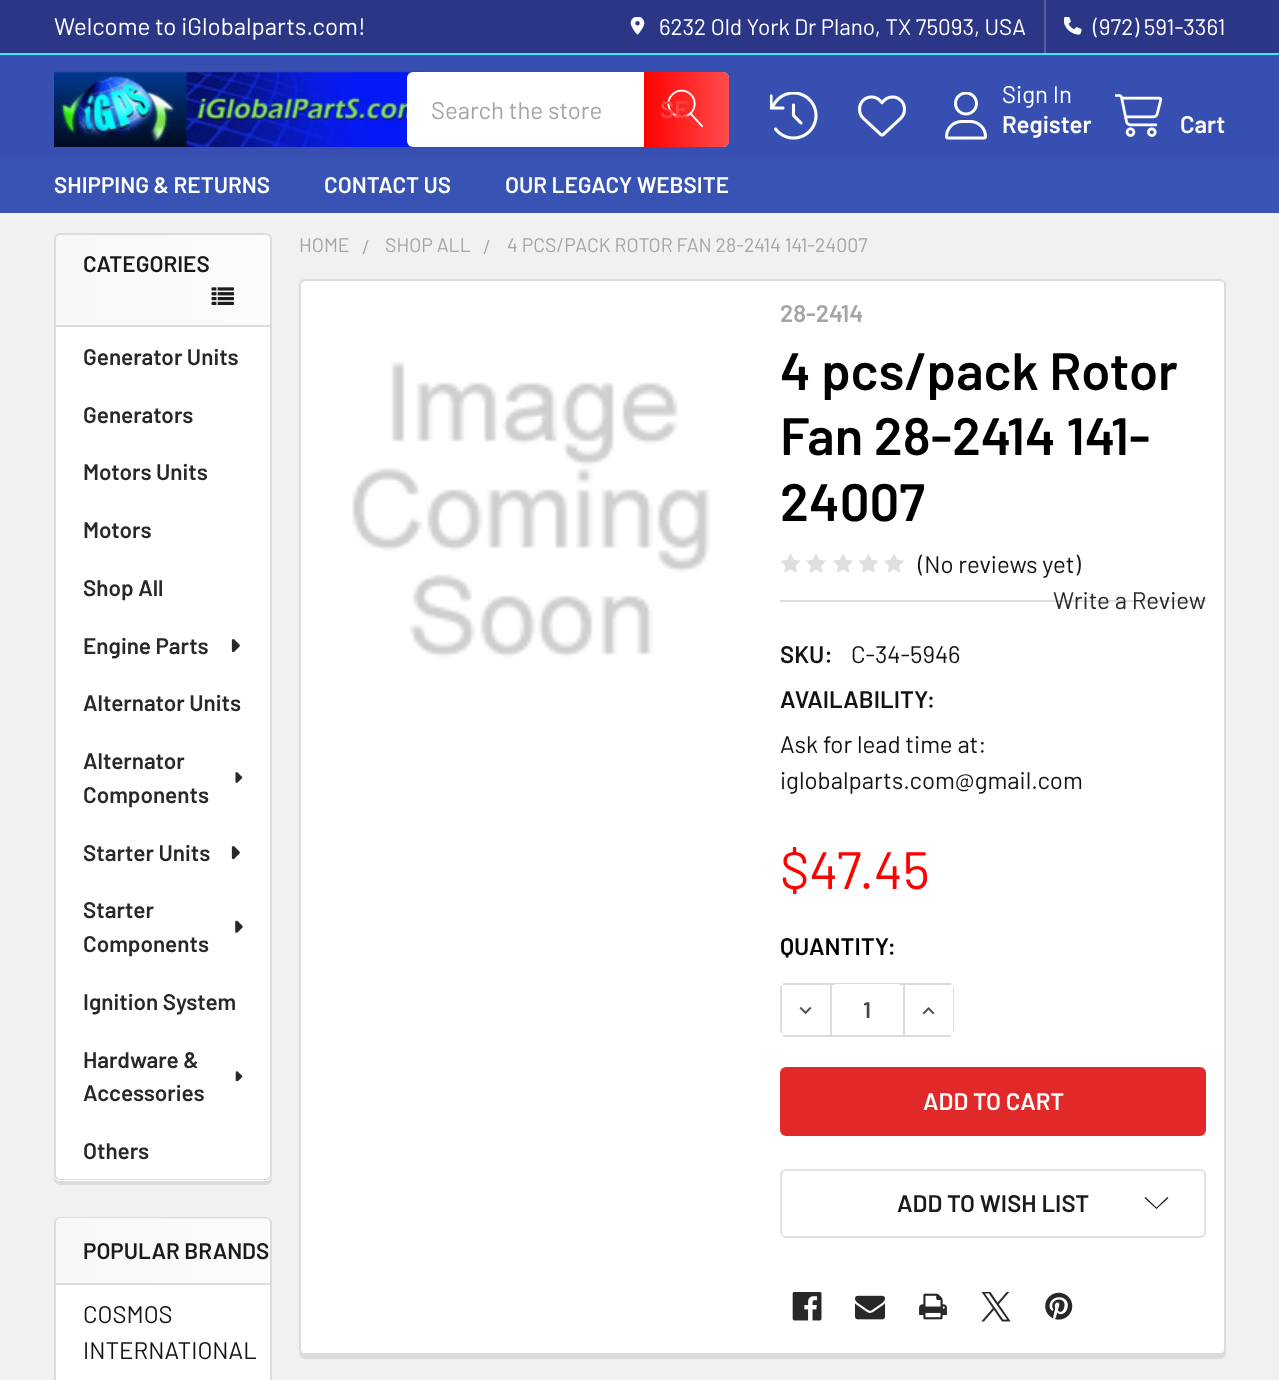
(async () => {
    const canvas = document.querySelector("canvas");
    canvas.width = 1279;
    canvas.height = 1380;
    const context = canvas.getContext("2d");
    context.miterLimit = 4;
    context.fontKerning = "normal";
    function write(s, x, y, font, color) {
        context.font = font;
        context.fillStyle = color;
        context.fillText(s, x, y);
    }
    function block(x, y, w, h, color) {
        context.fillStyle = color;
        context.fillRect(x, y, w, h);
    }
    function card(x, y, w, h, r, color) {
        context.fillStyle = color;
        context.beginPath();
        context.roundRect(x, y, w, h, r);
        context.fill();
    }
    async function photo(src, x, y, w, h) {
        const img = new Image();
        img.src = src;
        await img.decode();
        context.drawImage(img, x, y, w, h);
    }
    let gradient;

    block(0, 0, 1279, 1380, "rgb(241, 241, 242)");
    block(0, 55, 1279, 101, "rgb(56, 79, 178)");
    block(0, 0, 1279, 53, "rgb(43, 54, 135)");
    block(0, 53, 1279, 2, "rgb(60, 229, 241)");
    write("Welcome to iGlobalparts.com!", 54, 35, "24px Barlow", "rgb(255, 255, 255)");
    await photo("media/1.png", 630, 17, 15, 18);
    write("6232 Old York Dr Plano, TX 75093, USA", 659, 35, "22.5px Barlow", "rgb(255, 255, 255)");
    block(1044, 0, 2, 53, "rgb(85, 94, 159)");
    await photo("media/2.png", 1064, 17, 18, 18);
    write("(972) 591-3361", 1093, 35, "22.5px Barlow", "rgb(255, 255, 255)");
    await photo("media/3.png", 54, 71, 372, 76);
    card(407, 72, 322, 75, 6, "rgb(255, 255, 255)");
    gradient = context.createLinearGradient(644, 110, 729, 110);
    gradient.addColorStop(0, "rgb(255, 0, 0)");
    gradient.addColorStop(1, "rgba(255, 0, 0, 0.7)");
    context.fillStyle = gradient;
    context.beginPath();
    context.roundRect(644, 72, 85, 75, [0, 6, 6, 0]);
    context.fill();
    await photo("media/4.png", 667, 89, 37, 39);
    write("Search the store", 431, 119, "24px Barlow", "rgb(165, 165, 165)");
    write("SE", 660, 118, "600 24px Barlow", "rgb(255, 69, 69)");
    await photo("media/5.png", 770, 92, 48, 48);
    await photo("media/6.png", 858, 95, 48, 42);
    await photo("media/7.png", 945, 92, 42, 48);
    write("Sign In", 1002, 103, "24px Barlow", "rgb(255, 255, 255)");
    write("Register", 1002, 133, "600 24px Barlow", "rgb(255, 255, 255)");
    await photo("media/8.png", 1115, 94, 48, 43);
    write("Cart", 1180, 133, "600 24px Barlow", "rgb(255, 255, 255)");
    block(0, 156, 1279, 57, "rgb(56, 83, 180)");
    write("SHIPPING & RETURNS", 54, 193, "600 22.5px Barlow", "rgb(255, 255, 255)");
    write("CONTACT US", 324, 193, "600 22.5px Barlow", "rgb(255, 255, 255)");
    write("OUR LEGACY WEBSITE", 505, 193, "600 22.5px Barlow", "rgb(255, 255, 255)");
    context.fillStyle = "rgb(220, 220, 220)";
    context.beginPath();
    context.moveTo(54, 1174);
    context.lineTo(54, 1179);
    context.bezierCurveTo(54, 1182, 57, 1185, 60, 1185);
    context.lineTo(266, 1185);
    context.bezierCurveTo(269, 1185, 272, 1182, 272, 1179);
    context.lineTo(272, 243);
    context.lineTo(272, 241);
    context.lineTo(272, 1174);
    context.bezierCurveTo(272, 1178, 269, 1180, 266, 1180);
    context.lineTo(60, 1180);
    context.bezierCurveTo(57, 1180, 54, 1178, 54, 1174);
    context.closePath();
    context.fill();
    card(54, 233, 218, 948, 6, "rgb(255, 255, 255)");
    gradient = context.createLinearGradient(54, 707, 272, 707);
    gradient.addColorStop(0, "rgb(248, 248, 248)");
    gradient.addColorStop(1, "rgba(248, 248, 248, 0.6)");
    context.fillStyle = gradient;
    context.beginPath();
    context.roundRect(54, 233, 218, 948, 6);
    context.fill();
    context.beginPath();
    context.roundRect(55, 234, 216, 92, [5, 5, 0, 0]);
    context.strokeStyle = "rgb(220, 220, 220)";
    context.lineWidth = 2;
    context.stroke();
    write("CATEGORIES", 83, 272, "600 22.5px Barlow", "rgb(26, 26, 26)");
    await photo("media/9.png", 211, 287, 23, 18);
    context.fillStyle = "rgb(255, 255, 255)";
    context.beginPath();
    context.roundRect(54, 327, 218, 854, [0, 0, 6, 6]);
    context.fill();
    context.fillStyle = "rgb(220, 220, 220)";
    context.beginPath();
    context.moveTo(54, 327);
    context.lineTo(272, 327);
    context.lineTo(272, 1174);
    context.bezierCurveTo(272, 1178, 269, 1180, 266, 1180);
    context.lineTo(60, 1180);
    context.bezierCurveTo(57, 1180, 54, 1178, 54, 1174);
    context.closePath();
    context.moveTo(56, 327);
    context.lineTo(270, 327);
    context.lineTo(270, 1174);
    context.bezierCurveTo(270, 1177, 268, 1179, 266, 1179);
    context.lineTo(60, 1179);
    context.bezierCurveTo(58, 1179, 56, 1177, 56, 1174);
    context.closePath();
    context.fill("evenodd");
    write("Generator Units", 83, 365, "600 22.5px Barlow", "rgb(40, 40, 40)");
    write("Generators", 83, 423, "600 22.5px Barlow", "rgb(40, 40, 40)");
    write("Motors Units", 83, 480, "600 22.5px Barlow", "rgb(40, 40, 40)");
    write("Motors", 83, 538, "600 22.5px Barlow", "rgb(40, 40, 40)");
    write("Shop All", 83, 596, "600 22.5px Barlow", "rgb(40, 40, 40)");
    write("Engine Parts", 83, 654, "600 22.5px Barlow", "rgb(40, 40, 40)");
    await photo("media/10.png", 231, 639, 9, 14);
    write("Alternator Units", 83, 711, "600 22.5px Barlow", "rgb(40, 40, 40)");
    write("Alternator", 83, 769, "600 22.5px Barlow", "rgb(40, 40, 40)");
    await photo("media/11.png", 235, 772, 8, 11);
    write("Components", 83, 803, "600 22.5px Barlow", "rgb(40, 40, 40)");
    write("Starter Units", 83, 861, "600 22.5px Barlow", "rgb(40, 40, 40)");
    await photo("media/10.png", 231, 846, 9, 14);
    write("Starter", 83, 918, "600 22.5px Barlow", "rgb(40, 40, 40)");
    await photo("media/12.png", 235, 920, 8, 13);
    write("Components", 83, 952, "600 22.5px Barlow", "rgb(40, 40, 40)");
    write("Ignition System", 83, 1010, "600 22.5px Barlow", "rgb(40, 40, 40)");
    write("Hardware &", 83, 1068, "600 22.5px Barlow", "rgb(40, 40, 40)");
    await photo("media/13.png", 235, 1071, 8, 11);
    write("Accessories", 83, 1101, "600 22.5px Barlow", "rgb(40, 40, 40)");
    write("Others", 83, 1159, "600 22.5px Barlow", "rgb(40, 40, 40)");
    context.fillStyle = "rgb(255, 255, 255)";
    context.beginPath();
    context.roundRect(55, 1218, 216, 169, 5);
    context.fill();
    context.stroke();
    gradient = context.createLinearGradient(56, 1250, 270, 1250);
    gradient.addColorStop(0, "rgb(248, 248, 248)");
    gradient.addColorStop(1, "rgba(248, 248, 248, 0.6)");
    context.fillStyle = gradient;
    context.beginPath();
    context.roundRect(56, 1218, 214, 66, [5, 5, 0, 0]);
    context.fill();
    block(56, 1283, 214, 2, "rgb(220, 220, 220)");
    write("POPULAR BRANDS", 83, 1259, "600 22.5px Barlow", "rgb(26, 26, 26)");
    write("COSMOS", 83, 1323, "24px Barlow", "rgb(19, 19, 19)");
    write("INTERNATIONAL", 83, 1359, "24px Barlow", "rgb(19, 19, 19)");
    write("HOME", 299, 252, "19.5px Barlow", "rgb(165, 165, 165)");
    write("/", 362, 254, "19.5px Barlow", "rgb(165, 165, 165)");
    write("SHOP ALL", 385, 252, "19.5px Barlow", "rgb(165, 165, 165)");
    write("/", 483, 254, "19.5px Barlow", "rgb(165, 165, 165)");
    write("4 PCS/PACK ROTOR FAN 28-2414 141-24007", 507, 252, "19.5px Barlow", "rgb(165, 165, 165)");
    context.fillStyle = "rgb(220, 220, 220)";
    context.beginPath();
    context.moveTo(299, 1351);
    context.lineTo(299, 1353);
    context.bezierCurveTo(299, 1356, 302, 1359, 305, 1359);
    context.lineTo(1220, 1359);
    context.bezierCurveTo(1223, 1359, 1226, 1356, 1226, 1353);
    context.lineTo(1226, 290);
    context.lineTo(1226, 288);
    context.lineTo(1226, 1348);
    context.bezierCurveTo(1226, 1352, 1223, 1354, 1220, 1354);
    context.lineTo(304, 1354);
    context.bezierCurveTo(302, 1354, 300, 1353, 299, 1351);
    context.closePath();
    context.fill();
    context.fillStyle = "rgb(255, 255, 255)";
    context.beginPath();
    context.roundRect(300, 280, 925, 1074, 5);
    context.fill();
    context.stroke();
    await photo("media/14.png", 352, 361, 358, 297);
    write("28-2414", 780, 322, "600 24px Barlow", "rgb(165, 165, 165)");
    write("4 pcs/pack Rotor", 780, 390, "600 52.5px Barlow", "rgb(0, 0, 0)");
    write("Fan 28-2414 141-", 780, 455, "600 52.5px Barlow", "rgb(0, 0, 0)");
    write("24007", 780, 521, "600 52.5px Barlow", "rgb(0, 0, 0)");
    await photo("media/15.png", 781, 554, 19, 19);
    await photo("media/16.png", 806, 554, 20, 19);
    await photo("media/16.png", 833, 554, 20, 19);
    await photo("media/15.png", 859, 554, 19, 19);
    await photo("media/16.png", 884, 554, 20, 19);
    write("(No reviews yet)", 918, 573, "24px Barlow", "rgb(19, 19, 19)");
    block(780, 600, 426, 2, "rgb(220, 220, 220)");
    write("Write a Review", 1053, 609, "24px Barlow", "rgb(40, 40, 40)");
    write("SKU:", 780, 663, "600 24px Barlow", "rgb(19, 19, 19)");
    write("C-34-5946", 851, 663, "24px Barlow", "rgb(19, 19, 19)");
    write("AVAILABILITY:", 780, 708, "600 24px Barlow", "rgb(19, 19, 19)");
    write("Ask for lead time at:", 780, 753, "24px Barlow", "rgb(19, 19, 19)");
    write("iglobalparts.com@gmail.com", 780, 789, "24px Barlow", "rgb(19, 19, 19)");
    write("$47.45", 780, 889, "52.5px Barlow", "rgb(255, 0, 0)");
    write("QUANTITY:", 780, 955, "600 24px Barlow", "rgb(0, 0, 0)");
    block(783, 983, 168, 2, "rgb(220, 220, 220)");
    block(783, 1035, 168, 2, "rgb(220, 220, 220)");
    card(831, 984, 72, 51, 6, "rgb(255, 255, 255)");
    block(830, 984, 2, 51, "rgb(220, 220, 220)");
    context.beginPath();
    context.moveTo(780, 988);
    context.lineTo(780, 1030);
    context.bezierCurveTo(780, 1032, 781, 1033, 782, 1034);
    context.lineTo(782, 985);
    context.bezierCurveTo(781, 986, 780, 987, 780, 988);
    context.closePath();
    context.fill();
    await photo("media/17.png", 799, 1006, 13, 9);
    write("1", 863, 1018, "600 22.5px Barlow", "rgb(69, 69, 69)");
    context.fillStyle = "rgb(220, 220, 220)";
    context.beginPath();
    context.moveTo(953, 986);
    context.lineTo(954, 988);
    context.lineTo(954, 1030);
    context.lineTo(953, 1033);
    context.closePath();
    context.fill();
    block(903, 984, 2, 51, "rgb(220, 220, 220)");
    await photo("media/18.png", 922, 1007, 13, 8);
    context.fillStyle = "rgb(225, 41, 41)";
    context.beginPath();
    context.roundRect(781, 1068, 424, 67, 5);
    context.fill();
    context.strokeStyle = "rgb(225, 41, 41)";
    context.stroke();
    write("ADD TO CART", 923, 1110, "600 24px Barlow", "rgb(255, 255, 255)");
    context.beginPath();
    context.roundRect(781, 1170, 424, 67, 5);
    context.strokeStyle = "rgb(224, 225, 228)";
    context.stroke();
    write("ADD TO WISH LIST", 897, 1212, "600 24px Barlow", "rgb(26, 26, 26)");
    context.beginPath();
    context.moveTo(1156.5, 1207.5);
    context.lineTo(1167.5, 1197);
    context.lineTo(1168.5, 1198);
    context.lineTo(1156.5, 1209);
    context.lineTo(1144.5, 1198);
    context.lineTo(1145.5, 1197);
    context.closePath();
    context.fill("evenodd");
    await photo("media/19.png", 792, 1292, 30, 29);
    await photo("media/20.png", 855, 1295, 30, 25);
    await photo("media/21.png", 919, 1293, 28, 27);
    await photo("media/22.png", 981, 1292, 30, 30);
    await photo("media/23.png", 1045, 1292, 28, 28);
})();
